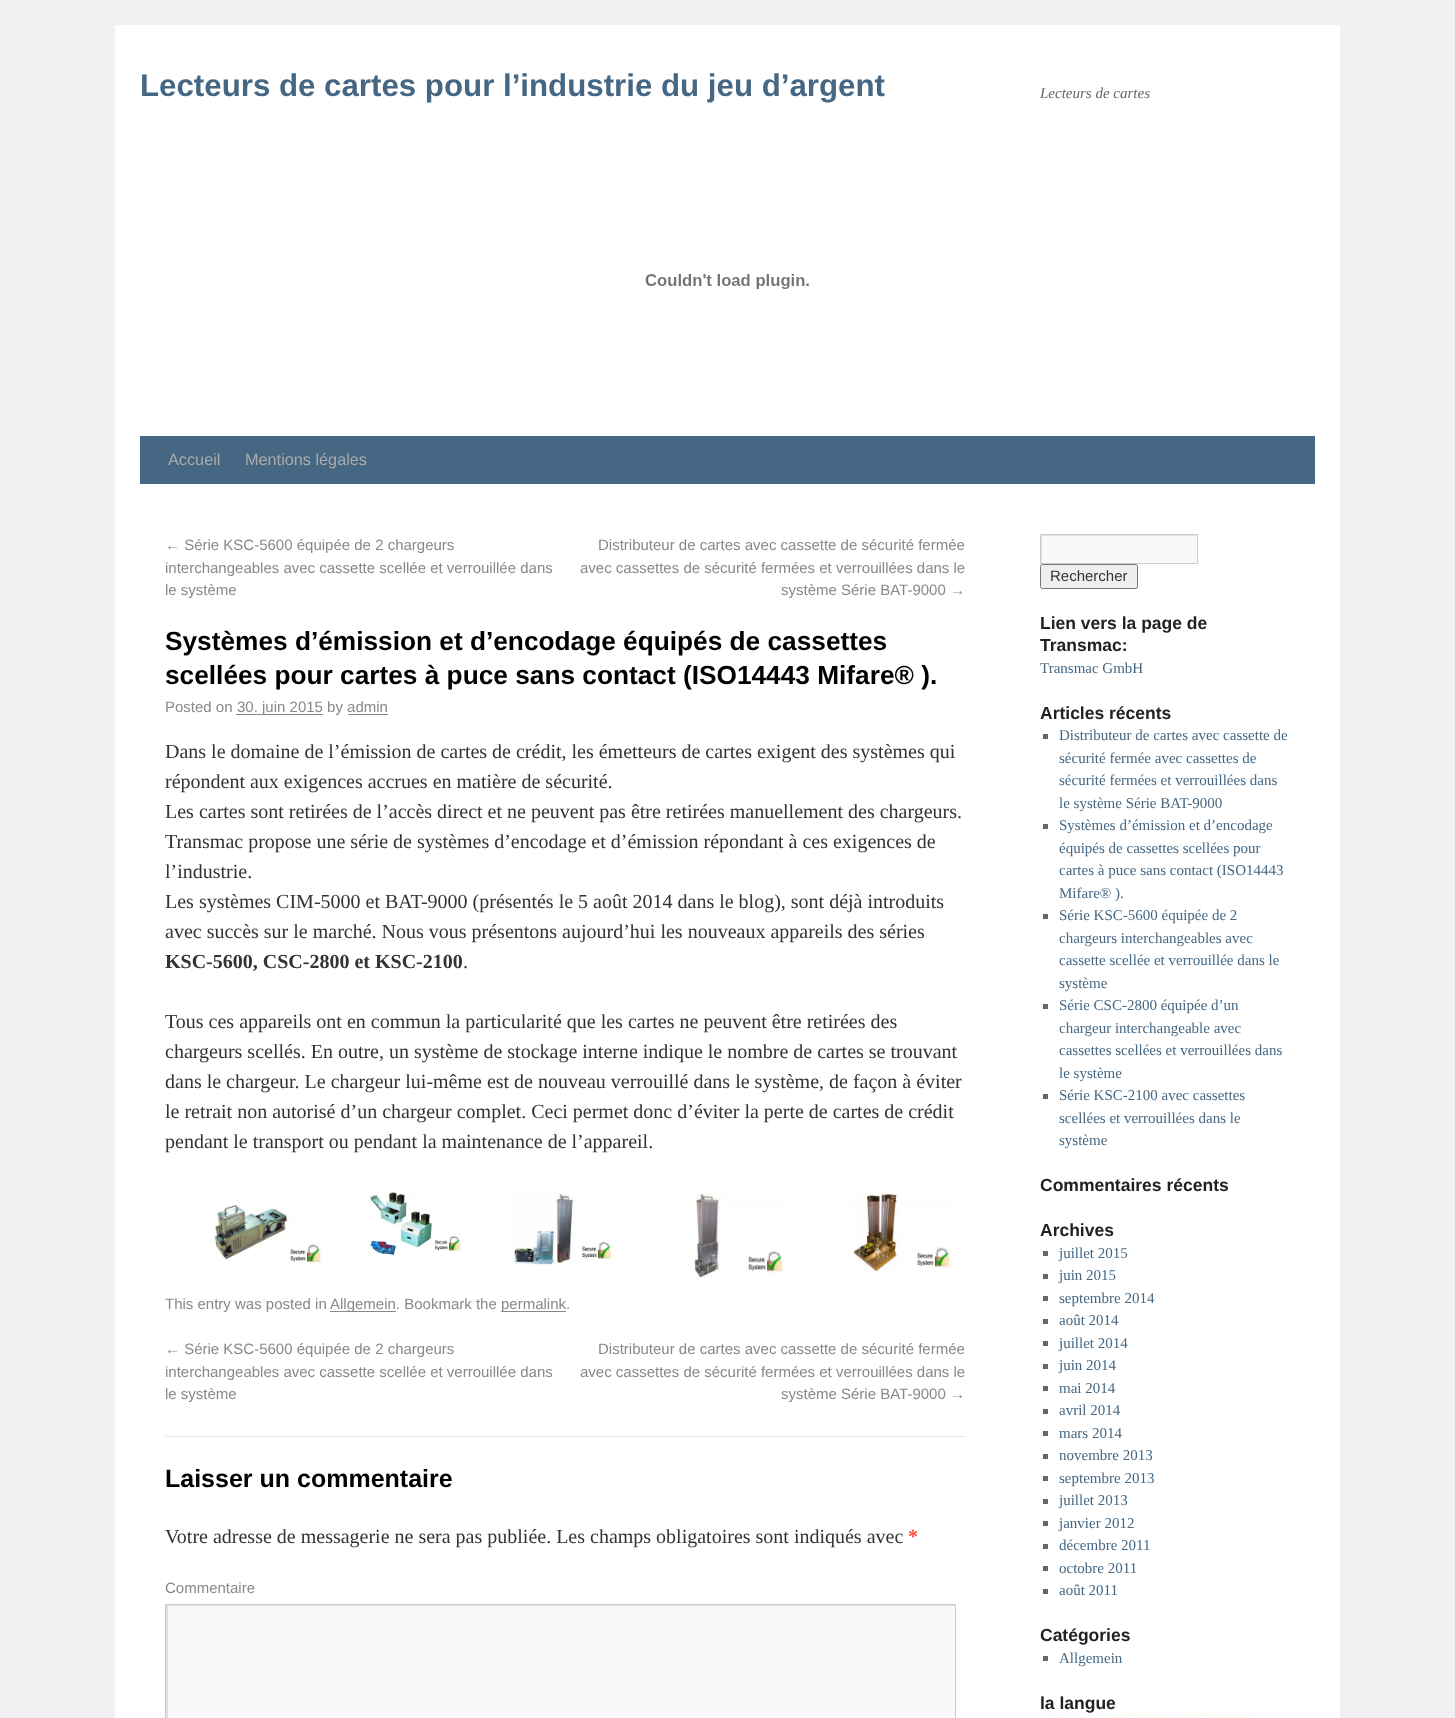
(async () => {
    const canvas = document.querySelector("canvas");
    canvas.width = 1455;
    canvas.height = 1718;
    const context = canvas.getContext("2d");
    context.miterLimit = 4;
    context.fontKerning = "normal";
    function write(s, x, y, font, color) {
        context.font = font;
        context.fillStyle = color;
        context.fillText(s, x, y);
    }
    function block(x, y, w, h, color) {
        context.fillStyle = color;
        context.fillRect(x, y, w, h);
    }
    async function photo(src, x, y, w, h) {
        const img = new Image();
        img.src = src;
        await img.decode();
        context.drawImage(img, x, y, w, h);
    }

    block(0, 0, 1455, 1718, "rgb(241, 241, 241)");
    block(115, 25, 1225, 1693, "rgb(255, 255, 255)");
    write("Lecteurs de cartes pour l’industrie du jeu d’argent", 140, 96, "bold 31.25px Liberation Sans", "rgb(69, 103, 131)");
    write("Lecteurs de cartes", 1040, 98, "italic 15px Liberation Serif", "rgb(102, 102, 102)");
    await photo("media/1.png", 645, 274, 164, 15);
    block(140, 436, 1175, 48, "rgb(69, 103, 131)");
    write("Accueil", 168, 465, "16.25px Liberation Sans", "rgb(170, 170, 170)");
    write("Mentions légales", 245, 465, "16.25px Liberation Sans", "rgb(170, 170, 170)");
    write("← Série KSC-5600 équipée de 2 chargeurs", 165, 550, "15px Liberation Sans", "rgb(136, 136, 136)");
    write("interchangeables avec cassette scellée et verrouillée dans", 165, 573, "15px Liberation Sans", "rgb(136, 136, 136)");
    write("le système", 165, 595, "15px Liberation Sans", "rgb(136, 136, 136)");
    write("Distributeur de cartes avec cassette de sécurité fermée", 598, 550, "15px Liberation Sans", "rgb(136, 136, 136)");
    write("avec cassettes de sécurité fermées et verrouillées dans le", 580, 573, "15px Liberation Sans", "rgb(136, 136, 136)");
    write("système Série BAT-9000 →", 781, 595, "15px Liberation Sans", "rgb(136, 136, 136)");
    write("Systèmes d’émission et d’encodage équipés de cassettes", 165, 650, "bold 26.25px Liberation Sans", "rgb(0, 0, 0)");
    write("scellées pour cartes à puce sans contact (ISO14443 Mifare® ).", 165, 684, "bold 26.25px Liberation Sans", "rgb(0, 0, 0)");
    write("Posted on", 165, 712, "15px Liberation Sans", "rgb(136, 136, 136)");
    block(236, 714, 87, 1, "rgb(136, 136, 136)");
    write("30. juin 2015 by admin", 237, 712, "15px Liberation Sans", "rgb(136, 136, 136)");
    block(348, 714, 40, 1, "rgb(136, 136, 136)");
    write("Dans le domaine de l’émission de cartes de crédit, les émetteurs de cartes exigent des systèmes qui", 165, 758, "20px Liberation Serif", "rgb(51, 51, 51)");
    write("répondent aux exigences accrues en matière de sécurité.", 165, 788, "20px Liberation Serif", "rgb(51, 51, 51)");
    write("Les cartes sont retirées de l’accès direct et ne peuvent pas être retirées manuellement des chargeurs.", 165, 818, "20px Liberation Serif", "rgb(51, 51, 51)");
    write("Transmac propose une série de systèmes d’encodage et d’émission répondant à ces exigences de", 165, 848, "20px Liberation Serif", "rgb(51, 51, 51)");
    write("l’industrie.", 165, 878, "20px Liberation Serif", "rgb(51, 51, 51)");
    write("Les systèmes CIM-5000 et BAT-9000 (présentés le 5 août 2014 dans le blog), sont déjà introduits", 165, 908, "20px Liberation Serif", "rgb(51, 51, 51)");
    write("avec succès sur le marché. Nous vous présentons aujourd’hui les nouveaux appareils des séries", 165, 938, "20px Liberation Serif", "rgb(51, 51, 51)");
    write("KSC-5600, CSC-2800 et KSC-2100", 165, 968, "bold 20px Liberation Serif", "rgb(51, 51, 51)");
    write(".", 463, 968, "20px Liberation Serif", "rgb(51, 51, 51)");
    write("Tous ces appareils ont en commun la particularité que les cartes ne peuvent être retirées des", 165, 1028, "20px Liberation Serif", "rgb(51, 51, 51)");
    write("chargeurs scellés. En outre, un système de stockage interne indique le nombre de cartes se trouvant", 165, 1058, "20px Liberation Serif", "rgb(51, 51, 51)");
    write("dans le chargeur. Le chargeur lui-même est de nouveau verrouillé dans le système, de façon à éviter", 165, 1088, "20px Liberation Serif", "rgb(51, 51, 51)");
    write("le retrait non autorisé d’un chargeur complet. Ceci permet donc d’éviter la perte de cartes de crédit", 165, 1118, "20px Liberation Serif", "rgb(51, 51, 51)");
    write("pendant le transport ou pendant la maintenance de l’appareil.", 165, 1148, "20px Liberation Serif", "rgb(51, 51, 51)");
    await photo("media/2.png", 214, 1204, 109, 62);
    await photo("media/3.png", 369, 1192, 94, 63);
    await photo("media/4.png", 513, 1193, 101, 72);
    await photo("media/5.png", 694, 1192, 92, 86);
    await photo("media/6.png", 852, 1192, 101, 80);
    write("This entry was posted in", 165, 1309, "15px Liberation Sans", "rgb(136, 136, 136)");
    block(330, 1311, 66, 1, "rgb(136, 136, 136)");
    write("Allgemein. Bookmark the", 330, 1309, "15px Liberation Sans", "rgb(136, 136, 136)");
    block(501, 1311, 65, 1, "rgb(136, 136, 136)");
    write("permalink.", 501, 1309, "15px Liberation Sans", "rgb(136, 136, 136)");
    write("← Série KSC-5600 équipée de 2 chargeurs", 165, 1354, "15px Liberation Sans", "rgb(136, 136, 136)");
    write("interchangeables avec cassette scellée et verrouillée dans", 165, 1377, "15px Liberation Sans", "rgb(136, 136, 136)");
    write("le système", 165, 1399, "15px Liberation Sans", "rgb(136, 136, 136)");
    write("Distributeur de cartes avec cassette de sécurité fermée", 598, 1354, "15px Liberation Sans", "rgb(136, 136, 136)");
    write("avec cassettes de sécurité fermées et verrouillées dans le", 580, 1377, "15px Liberation Sans", "rgb(136, 136, 136)");
    write("système Série BAT-9000 →", 781, 1399, "15px Liberation Sans", "rgb(136, 136, 136)");
    block(165, 1436, 800, 1, "rgb(231, 231, 231)");
    write("Laisser un commentaire", 165, 1487, "bold 25px Liberation Sans", "rgb(0, 0, 0)");
    write("Votre adresse de messagerie ne sera pas publiée. Les champs obligatoires sont indiqués avec", 165, 1543, "20px Liberation Serif", "rgb(51, 51, 51)");
    write("*", 908, 1543, "bold 20px Liberation Serif", "rgb(255, 75, 51)");
    write("Commentaire", 165, 1593, "15px Liberation Sans", "rgb(136, 136, 136)");
    block(168, 1606, 787, 112, "rgb(249, 249, 249)");
    context.save();
    context.beginPath();
    context.rect(166, 1605, 789, 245);
    context.clip();
    context.fillStyle = "rgb(224, 224, 224)";
    context.beginPath();
    context.moveTo(42, 1481);
    context.lineTo(1079, 1481);
    context.lineTo(1079, 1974);
    context.lineTo(42, 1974);
    context.closePath();
    context.moveTo(168, 1606);
    context.lineTo(956, 1606);
    context.lineTo(956, 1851);
    context.lineTo(168, 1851);
    context.closePath();
    context.fill("evenodd");
    context.restore();
    context.strokeStyle = "rgb(204, 204, 204)";
    context.strokeRect(165.5, 1604.5, 790, 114);
    block(1042, 535, 155, 28, "rgb(249, 249, 249)");
    context.save();
    context.beginPath();
    context.rect(1041, 535, 155, 28);
    context.clip();
    context.fillStyle = "rgb(224, 224, 224)";
    context.beginPath();
    context.moveTo(918, 411);
    context.lineTo(1320, 411);
    context.lineTo(1320, 686);
    context.lineTo(918, 686);
    context.closePath();
    context.moveTo(1042, 536);
    context.lineTo(1198, 536);
    context.lineTo(1198, 564);
    context.lineTo(1042, 564);
    context.closePath();
    context.fill("evenodd");
    context.restore();
    context.strokeRect(1040.5, 534.5, 157, 29);
    context.fillStyle = "rgb(239, 239, 239)";
    context.beginPath();
    context.roundRect(1040.5, 564.5, 97, 24, 2);
    context.fill();
    context.strokeStyle = "rgb(118, 118, 118)";
    context.stroke();
    write("Rechercher", 1050, 581, "15px Liberation Sans", "rgb(51, 51, 51)");
    write("Lien vers la page de", 1040, 629, "bold 17.5px Liberation Sans", "rgb(34, 34, 34)");
    write("Transmac:", 1040, 651, "bold 17.5px Liberation Sans", "rgb(34, 34, 34)");
    write("Transmac GmbH", 1040, 673, "15px Liberation Serif", "rgb(69, 103, 131)");
    write("Articles récents", 1040, 719, "bold 17.5px Liberation Sans", "rgb(34, 34, 34)");
    block(1043, 734, 5, 5, "rgb(102, 102, 102)");
    write("Distributeur de cartes avec cassette de", 1059, 740, "15px Liberation Serif", "rgb(69, 103, 131)");
    write("sécurité fermée avec cassettes de", 1059, 763, "15px Liberation Serif", "rgb(69, 103, 131)");
    write("sécurité fermées et verrouillées dans", 1059, 785, "15px Liberation Serif", "rgb(69, 103, 131)");
    write("le système Série BAT-9000", 1059, 808, "15px Liberation Serif", "rgb(69, 103, 131)");
    block(1043, 824, 5, 5, "rgb(102, 102, 102)");
    write("Systèmes d’émission et d’encodage", 1059, 830, "15px Liberation Serif", "rgb(69, 103, 131)");
    write("équipés de cassettes scellées pour", 1059, 853, "15px Liberation Serif", "rgb(69, 103, 131)");
    write("cartes à puce sans contact (ISO14443", 1059, 875, "15px Liberation Serif", "rgb(69, 103, 131)");
    write("Mifare® ).", 1059, 898, "15px Liberation Serif", "rgb(69, 103, 131)");
    block(1043, 914, 5, 5, "rgb(102, 102, 102)");
    write("Série KSC-5600 équipée de 2", 1059, 920, "15px Liberation Serif", "rgb(69, 103, 131)");
    write("chargeurs interchangeables avec", 1059, 943, "15px Liberation Serif", "rgb(69, 103, 131)");
    write("cassette scellée et verrouillée dans le", 1059, 965, "15px Liberation Serif", "rgb(69, 103, 131)");
    write("système", 1059, 988, "15px Liberation Serif", "rgb(69, 103, 131)");
    block(1043, 1004, 5, 5, "rgb(102, 102, 102)");
    write("Série CSC-2800 équipée d’un", 1059, 1010, "15px Liberation Serif", "rgb(69, 103, 131)");
    write("chargeur interchangeable avec", 1059, 1033, "15px Liberation Serif", "rgb(69, 103, 131)");
    write("cassettes scellées et verrouillées dans", 1059, 1055, "15px Liberation Serif", "rgb(69, 103, 131)");
    write("le système", 1059, 1078, "15px Liberation Serif", "rgb(69, 103, 131)");
    block(1043, 1094, 5, 5, "rgb(102, 102, 102)");
    write("Série KSC-2100 avec cassettes", 1059, 1100, "15px Liberation Serif", "rgb(69, 103, 131)");
    write("scellées et verrouillées dans le", 1059, 1123, "15px Liberation Serif", "rgb(69, 103, 131)");
    write("système", 1059, 1145, "15px Liberation Serif", "rgb(69, 103, 131)");
    write("Commentaires récents", 1040, 1191, "bold 17.5px Liberation Sans", "rgb(34, 34, 34)");
    write("Archives", 1040, 1236, "bold 17.5px Liberation Sans", "rgb(34, 34, 34)");
    block(1043, 1251, 5, 5, "rgb(102, 102, 102)");
    write("juillet 2015", 1059, 1258, "15px Liberation Serif", "rgb(69, 103, 131)");
    block(1043, 1274, 5, 5, "rgb(102, 102, 102)");
    write("juin 2015", 1059, 1280, "15px Liberation Serif", "rgb(69, 103, 131)");
    block(1043, 1296, 5, 5, "rgb(102, 102, 102)");
    write("septembre 2014", 1059, 1303, "15px Liberation Serif", "rgb(69, 103, 131)");
    block(1043, 1319, 5, 5, "rgb(102, 102, 102)");
    write("août 2014", 1059, 1325, "15px Liberation Serif", "rgb(69, 103, 131)");
    block(1043, 1341, 5, 5, "rgb(102, 102, 102)");
    write("juillet 2014", 1059, 1348, "15px Liberation Serif", "rgb(69, 103, 131)");
    block(1043, 1364, 5, 5, "rgb(102, 102, 102)");
    write("juin 2014", 1059, 1370, "15px Liberation Serif", "rgb(69, 103, 131)");
    block(1043, 1386, 5, 5, "rgb(102, 102, 102)");
    write("mai 2014", 1059, 1393, "15px Liberation Serif", "rgb(69, 103, 131)");
    block(1043, 1409, 5, 5, "rgb(102, 102, 102)");
    write("avril 2014", 1059, 1415, "15px Liberation Serif", "rgb(69, 103, 131)");
    block(1043, 1431, 5, 5, "rgb(102, 102, 102)");
    write("mars 2014", 1059, 1438, "15px Liberation Serif", "rgb(69, 103, 131)");
    block(1043, 1454, 5, 5, "rgb(102, 102, 102)");
    write("novembre 2013", 1059, 1460, "15px Liberation Serif", "rgb(69, 103, 131)");
    block(1043, 1476, 5, 5, "rgb(102, 102, 102)");
    write("septembre 2013", 1059, 1483, "15px Liberation Serif", "rgb(69, 103, 131)");
    block(1043, 1499, 5, 5, "rgb(102, 102, 102)");
    write("juillet 2013", 1059, 1505, "15px Liberation Serif", "rgb(69, 103, 131)");
    block(1043, 1521, 5, 5, "rgb(102, 102, 102)");
    write("janvier 2012", 1059, 1528, "15px Liberation Serif", "rgb(69, 103, 131)");
    block(1043, 1544, 5, 5, "rgb(102, 102, 102)");
    write("décembre 2011", 1059, 1550, "15px Liberation Serif", "rgb(69, 103, 131)");
    block(1043, 1566, 5, 5, "rgb(102, 102, 102)");
    write("octobre 2011", 1059, 1573, "15px Liberation Serif", "rgb(69, 103, 131)");
    block(1043, 1589, 5, 5, "rgb(102, 102, 102)");
    write("août 2011", 1059, 1595, "15px Liberation Serif", "rgb(69, 103, 131)");
    write("Catégories", 1040, 1641, "bold 17.5px Liberation Sans", "rgb(34, 34, 34)");
    block(1043, 1656, 5, 5, "rgb(102, 102, 102)");
    write("Allgemein", 1059, 1663, "15px Liberation Serif", "rgb(69, 103, 131)");
    write("la langue", 1040, 1709, "bold 17.5px Liberation Sans", "rgb(34, 34, 34)");
    await photo("media/7.png", 1054, 1714, 46, 4);
    await photo("media/8.png", 1111, 1713, 70, 5);
    await photo("media/9.png", 1183, 1713, 70, 5);
})();
